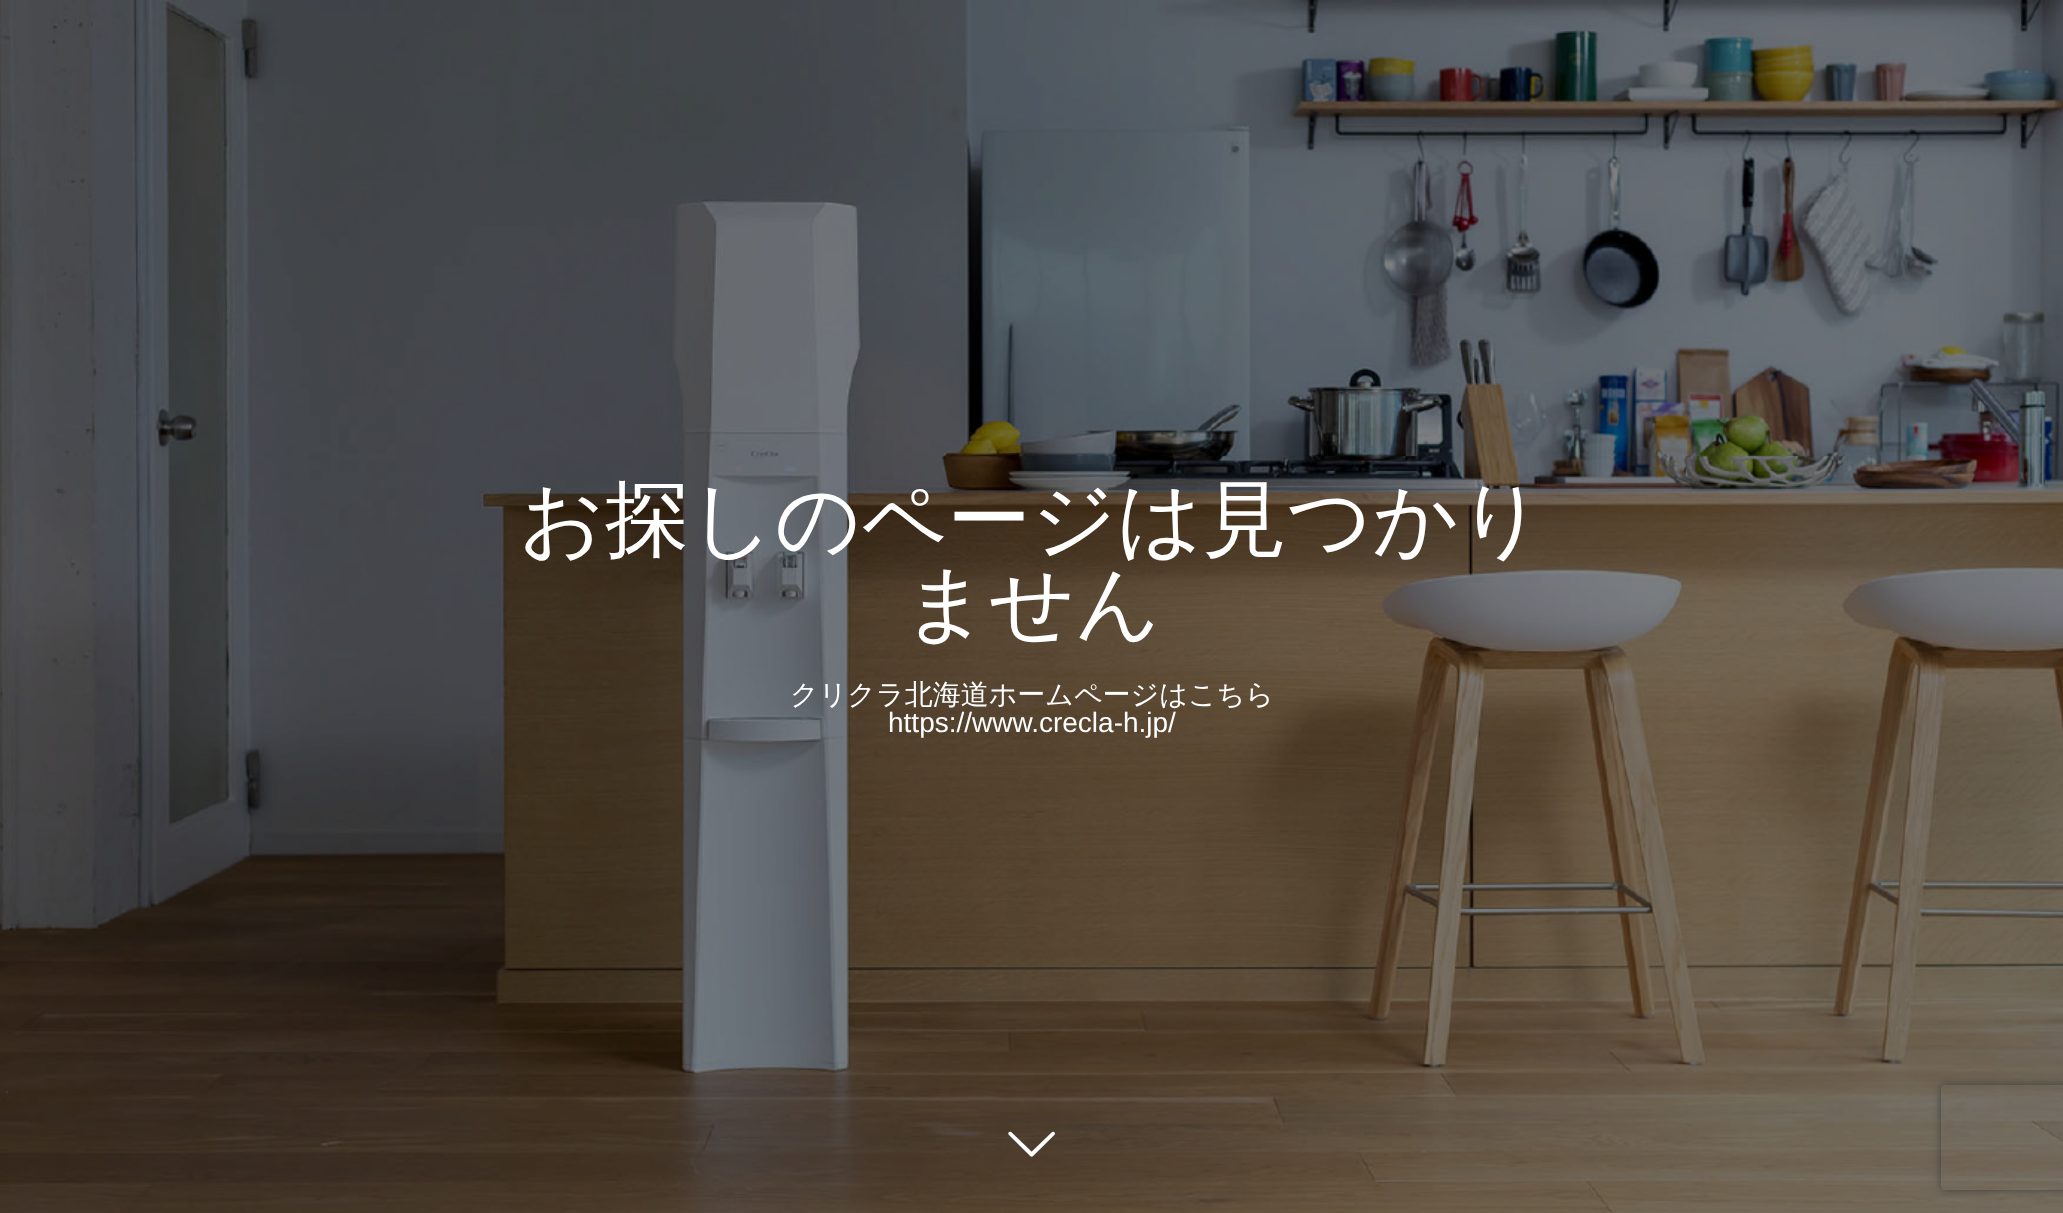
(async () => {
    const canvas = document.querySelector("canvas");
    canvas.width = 2063;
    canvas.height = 1213;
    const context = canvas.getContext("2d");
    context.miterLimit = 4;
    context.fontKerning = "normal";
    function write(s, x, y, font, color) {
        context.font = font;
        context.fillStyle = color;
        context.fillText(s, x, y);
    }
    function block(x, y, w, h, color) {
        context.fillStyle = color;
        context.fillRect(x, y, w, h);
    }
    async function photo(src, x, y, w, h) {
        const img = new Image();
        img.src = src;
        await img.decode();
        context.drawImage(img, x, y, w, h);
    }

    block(0, 0, 2063, 1213, "rgb(255, 255, 255)");
    await photo("media/1.png", 0, 0, 2063, 1213);
    write("お探しのページは見つかり", 519, 548, "500 84px WenQuanYi Zen Hei", "rgb(255, 255, 255)");
    write("ません", 903, 632, "500 84px WenQuanYi Zen Hei", "rgb(255, 255, 255)");
    write("クリクラ北海道ホームページはこちら", 790, 704, "500 28px WenQuanYi Zen Hei", "rgb(255, 255, 255)");
    write("https://www.crecla-h.jp/", 888, 732, "28px Liberation Sans", "rgb(255, 255, 255)");
    await photo("media/2.png", 1008, 1131, 47, 26);
    context.save();
    context.beginPath();
    context.moveTo(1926, 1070);
    context.lineTo(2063, 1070);
    context.lineTo(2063, 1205);
    context.lineTo(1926, 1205);
    context.closePath();
    context.moveTo(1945, 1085);
    context.lineTo(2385, 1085);
    context.bezierCurveTo(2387, 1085, 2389, 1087, 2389, 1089);
    context.lineTo(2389, 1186);
    context.bezierCurveTo(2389, 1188, 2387, 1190, 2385, 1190);
    context.lineTo(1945, 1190);
    context.bezierCurveTo(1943, 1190, 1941, 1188, 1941, 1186);
    context.lineTo(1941, 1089);
    context.bezierCurveTo(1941, 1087, 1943, 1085, 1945, 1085);
    context.closePath();
    context.clip("evenodd");
    context.fillStyle = "rgb(64, 64, 64)";
    context.filter = "blur(4.5px)";
    context.beginPath();
    context.roundRect(1941, 1085, 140, 105, 4);
    context.fill();
    context.filter = "none";
    context.restore();
})();
